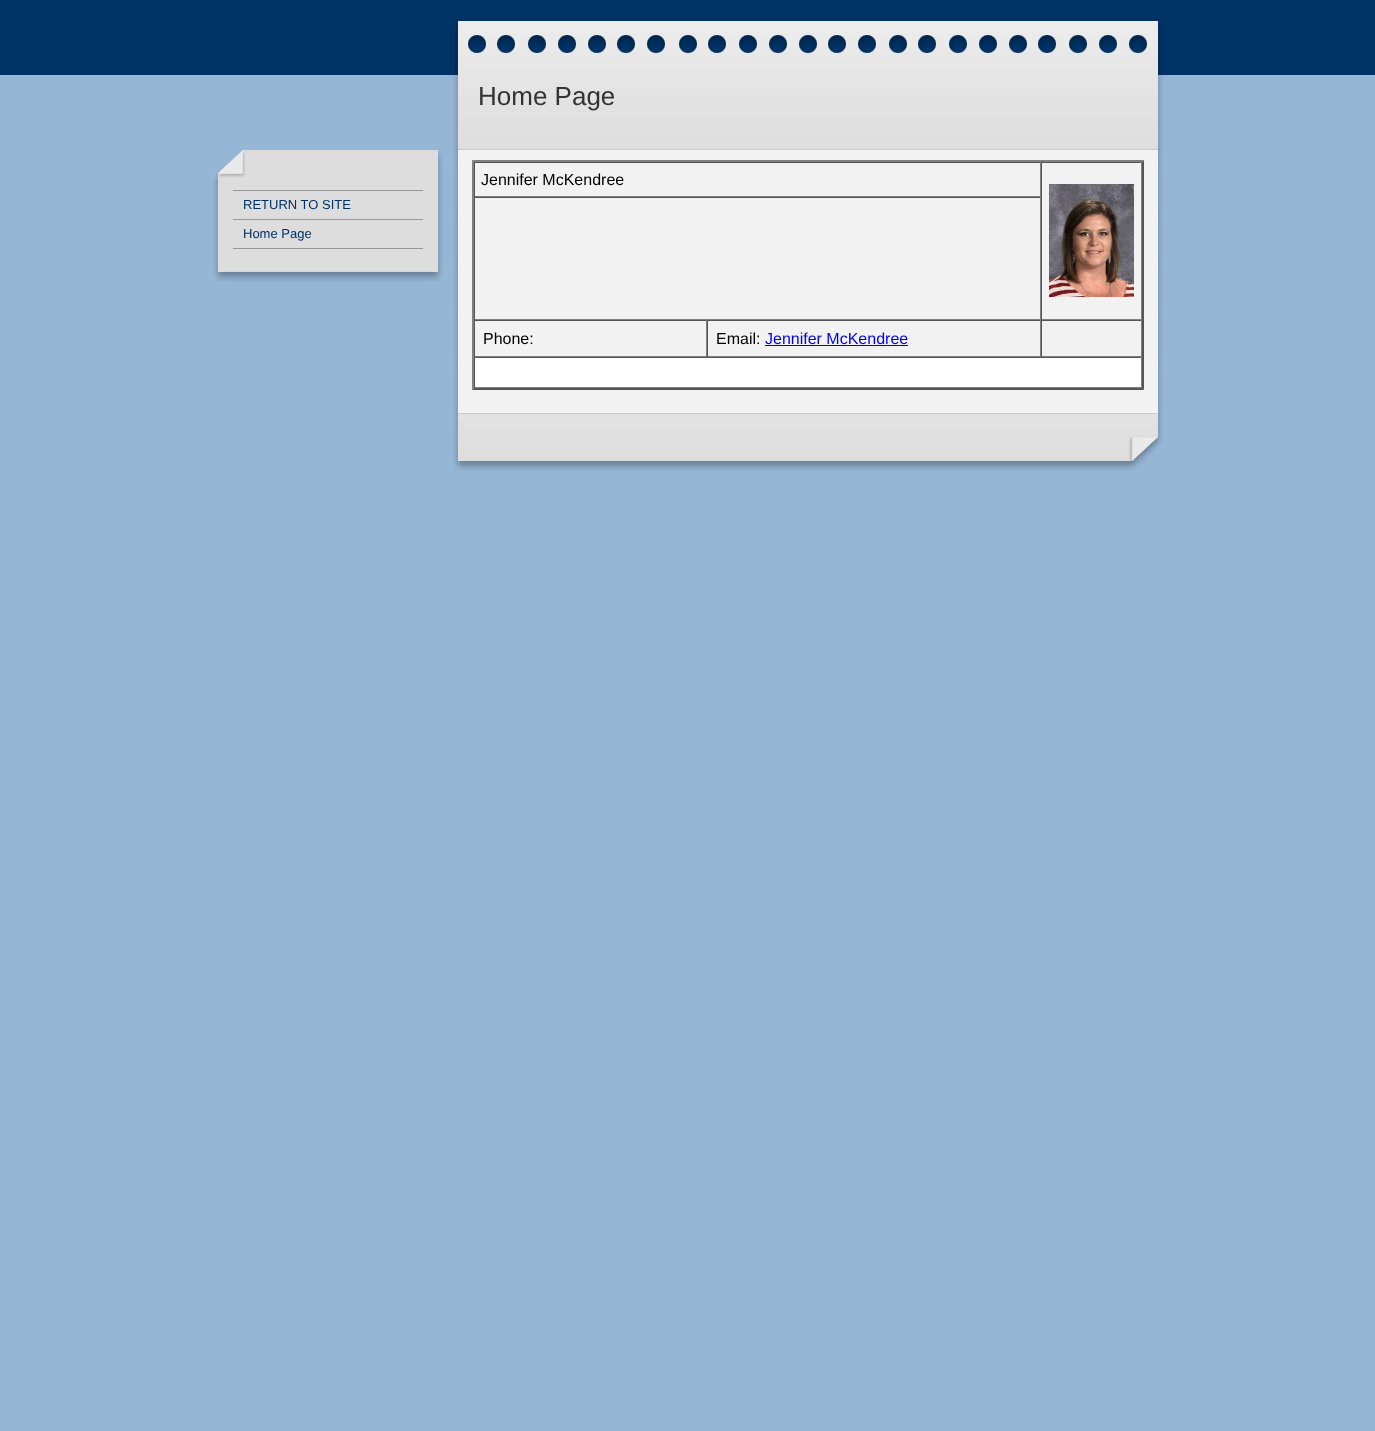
(async () => {
    const canvas = document.querySelector("canvas");
    canvas.width = 1375;
    canvas.height = 1431;
    const context = canvas.getContext("2d");
    context.miterLimit = 4;
    context.fontKerning = "normal";
    function write(s, x, y, font, color) {
        context.font = font;
        context.fillStyle = color;
        context.fillText(s, x, y);
    }
    function block(x, y, w, h, color) {
        context.fillStyle = color;
        context.fillRect(x, y, w, h);
    }
    async function photo(src, x, y, w, h) {
        const img = new Image();
        img.src = src;
        await img.decode();
        context.drawImage(img, x, y, w, h);
    }

    block(0, 0, 1375, 1431, "rgb(150, 182, 214)");
    block(0, 0, 1375, 75, "rgb(0, 51, 102)");
    await photo("media/1.png", 449, 16, 718, 134);
    write("Home Page", 478, 105, "26px Liberation Sans", "rgb(51, 51, 51)");
    await photo("media/2.png", 453, 150, 710, 263);
    await photo("media/3.png", 214, 150, 229, 30);
    await photo("media/4.png", 213, 259, 230, 23);
    await photo("media/5.png", 213, 180, 230, 79);
    block(233, 190, 190, 1, "rgb(153, 153, 153)");
    block(233, 219, 190, 1, "rgb(153, 153, 153)");
    write("RETURN TO SITE", 243, 209, "13px Liberation Sans", "rgb(0, 51, 102)");
    block(233, 248, 190, 1, "rgb(153, 153, 153)");
    write("Home Page", 243, 238, "13px Liberation Sans", "rgb(0, 51, 102)");
    context.fillStyle = "rgb(128, 128, 128)";
    context.beginPath();
    context.moveTo(472, 160);
    context.lineTo(1144, 160);
    context.lineTo(1142, 162);
    context.lineTo(474, 162);
    context.closePath();
    context.fill();
    context.fillStyle = "rgb(85, 85, 85)";
    context.beginPath();
    context.moveTo(1144, 160);
    context.lineTo(1144, 390);
    context.lineTo(1142, 388);
    context.lineTo(1142, 162);
    context.closePath();
    context.fill();
    context.beginPath();
    context.moveTo(1144, 390);
    context.lineTo(472, 390);
    context.lineTo(474, 388);
    context.lineTo(1142, 388);
    context.closePath();
    context.fill();
    context.fillStyle = "rgb(128, 128, 128)";
    context.beginPath();
    context.moveTo(472, 390);
    context.lineTo(472, 160);
    context.lineTo(474, 162);
    context.lineTo(474, 388);
    context.closePath();
    context.fill();
    block(474, 162, 668, 1, "rgb(85, 85, 85)");
    block(1040, 162, 1, 35, "rgb(128, 128, 128)");
    block(474, 196, 567, 1, "rgb(128, 128, 128)");
    block(474, 162, 1, 35, "rgb(85, 85, 85)");
    write("Jennifer McKendree", 481, 185, "16px Liberation Sans", "rgb(0, 0, 0)");
    block(1141, 162, 1, 158, "rgb(128, 128, 128)");
    block(1041, 319, 101, 1, "rgb(128, 128, 128)");
    block(1041, 162, 1, 158, "rgb(85, 85, 85)");
    await photo("media/6.png", 1049, 184, 85, 113);
    block(474, 197, 567, 1, "rgb(85, 85, 85)");
    block(1040, 197, 1, 123, "rgb(128, 128, 128)");
    block(474, 319, 567, 1, "rgb(128, 128, 128)");
    block(474, 197, 1, 123, "rgb(85, 85, 85)");
    block(474, 320, 668, 1, "rgb(85, 85, 85)");
    block(706, 320, 1, 37, "rgb(128, 128, 128)");
    block(474, 356, 233, 1, "rgb(128, 128, 128)");
    block(474, 320, 1, 37, "rgb(85, 85, 85)");
    write("Phone:", 483, 344, "16px Liberation Sans", "rgb(0, 0, 0)");
    block(1040, 320, 1, 37, "rgb(128, 128, 128)");
    block(707, 356, 334, 1, "rgb(128, 128, 128)");
    block(707, 320, 1, 37, "rgb(85, 85, 85)");
    write("Email:", 716, 344, "16px Liberation Sans", "rgb(0, 0, 0)");
    write("Jennifer McKendree", 765, 344, "16px Liberation Sans", "rgb(0, 0, 238)");
    block(765, 345, 143, 1, "rgb(0, 0, 238)");
    block(1141, 320, 1, 37, "rgb(128, 128, 128)");
    block(1041, 356, 101, 1, "rgb(128, 128, 128)");
    block(1041, 320, 1, 37, "rgb(85, 85, 85)");
    block(475, 358, 666, 29, "rgb(255, 255, 255)");
    block(474, 357, 668, 1, "rgb(85, 85, 85)");
    block(1141, 357, 1, 31, "rgb(128, 128, 128)");
    block(474, 387, 668, 1, "rgb(128, 128, 128)");
    block(474, 357, 1, 31, "rgb(85, 85, 85)");
    await photo("media/7.png", 453, 413, 710, 58);
})();
